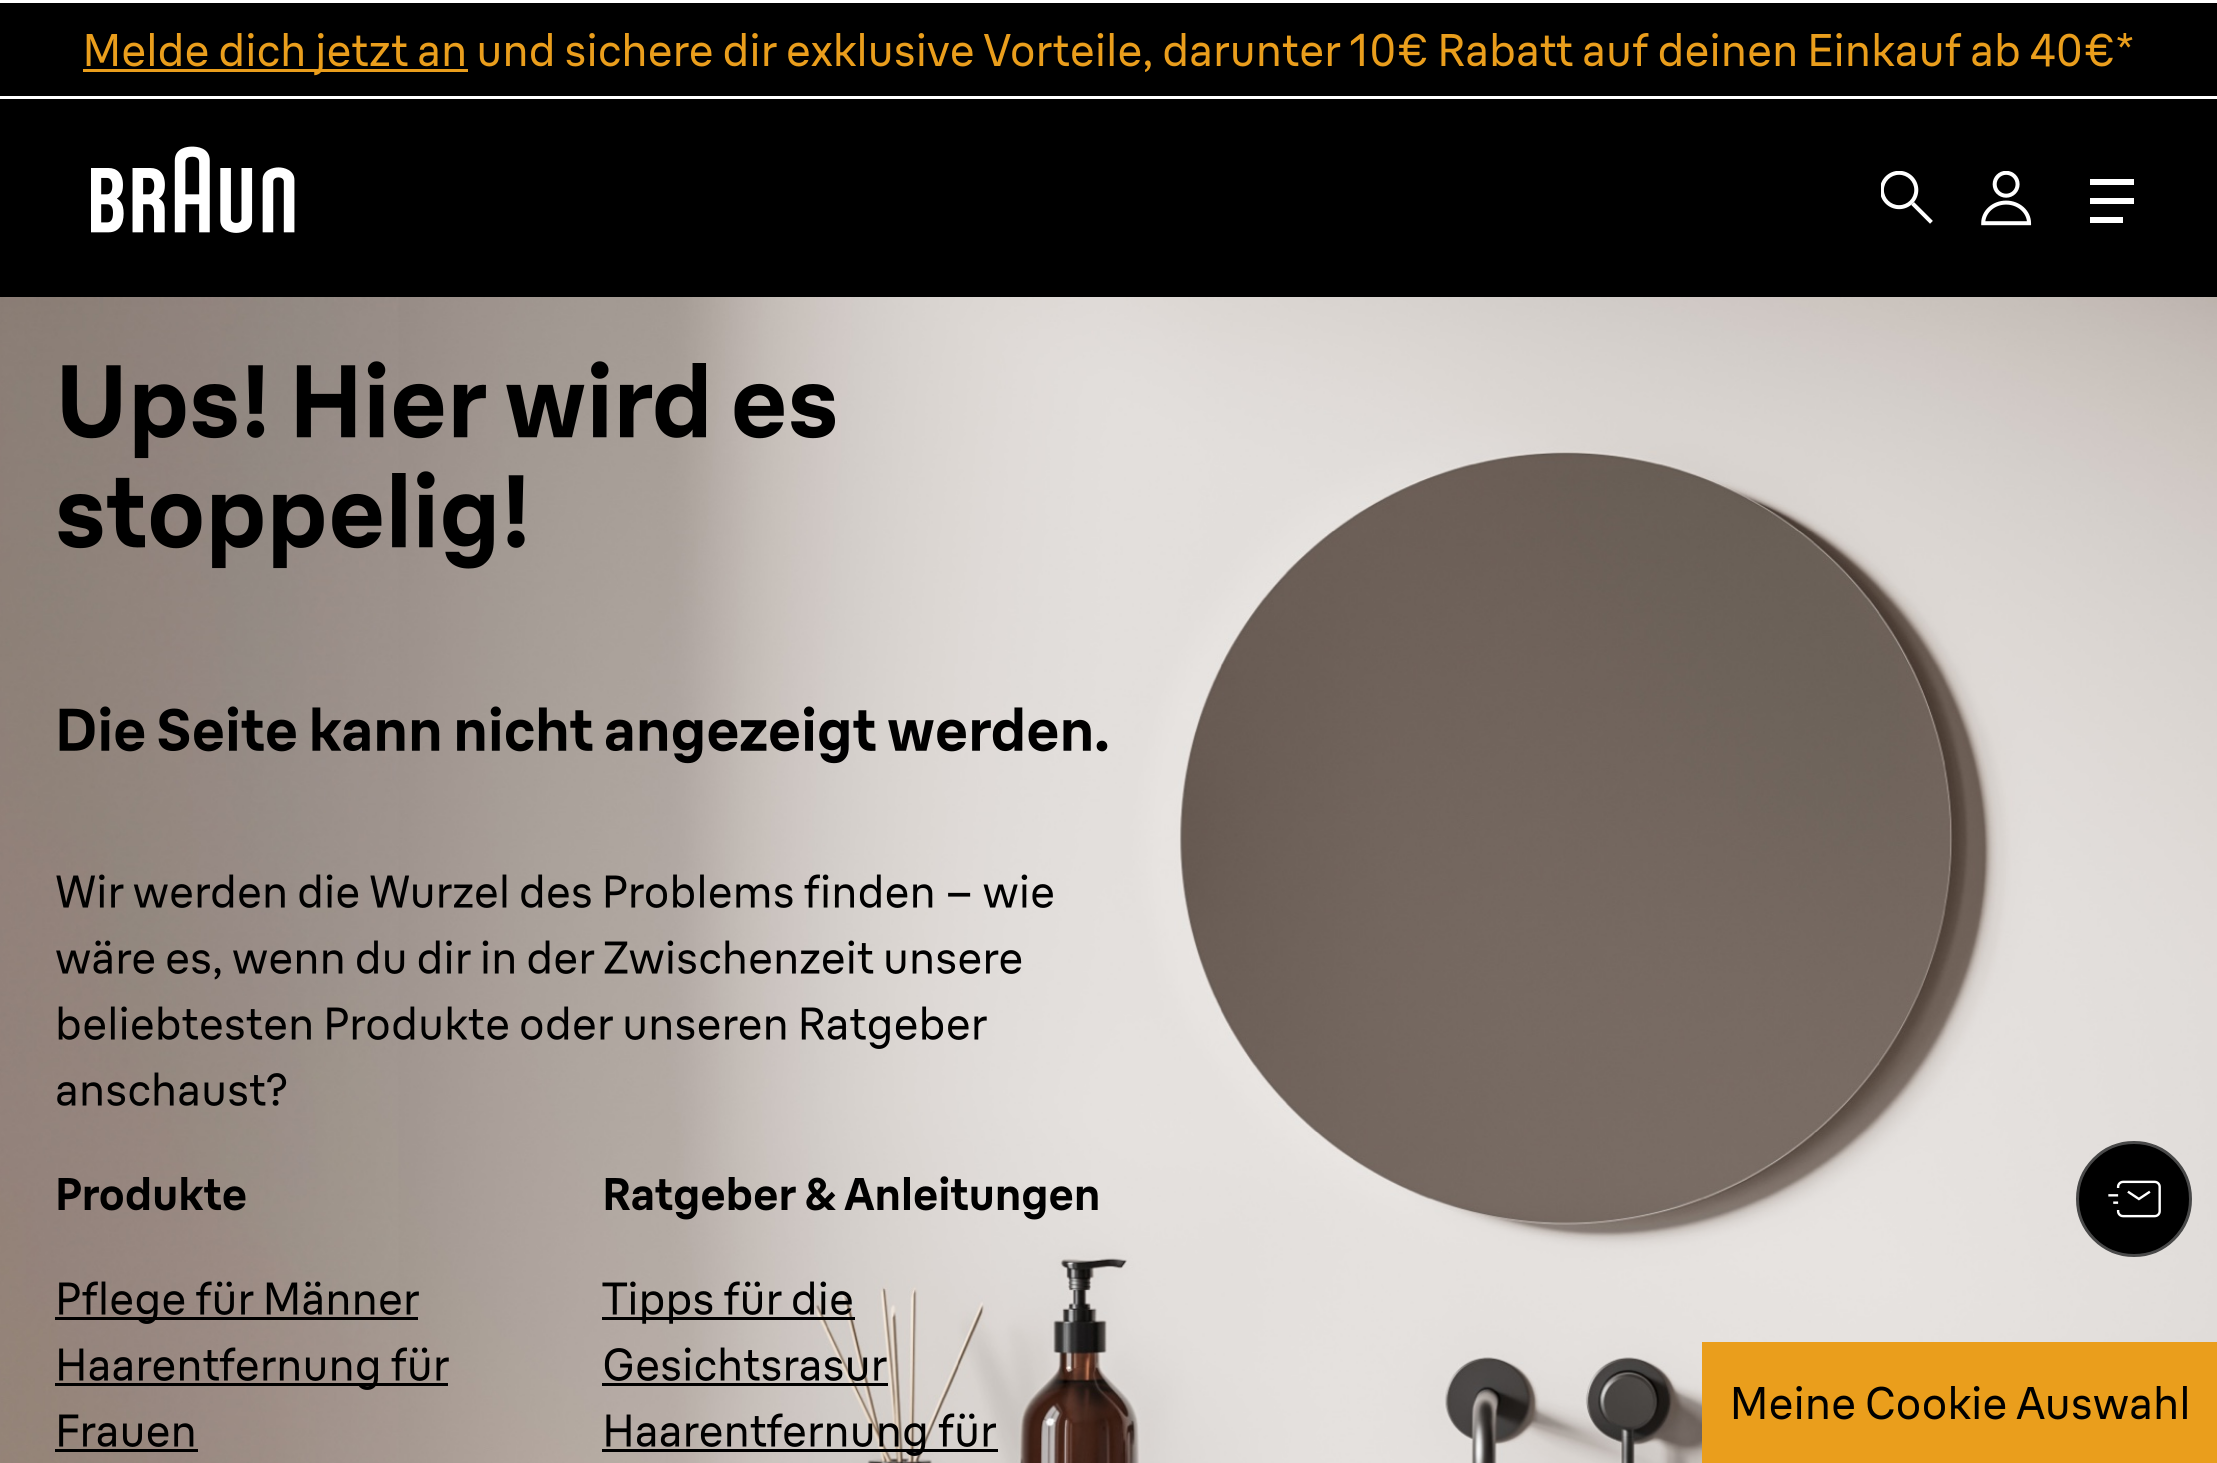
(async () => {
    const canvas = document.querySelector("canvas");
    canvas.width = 2217;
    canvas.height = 1463;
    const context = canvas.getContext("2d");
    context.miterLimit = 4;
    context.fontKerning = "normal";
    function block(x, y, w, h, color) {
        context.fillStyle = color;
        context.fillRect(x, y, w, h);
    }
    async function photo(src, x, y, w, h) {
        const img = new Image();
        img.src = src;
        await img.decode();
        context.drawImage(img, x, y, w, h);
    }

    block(0, 0, 2217, 1463, "rgb(255, 255, 255)");
    block(0, 3, 2217, 93, "rgb(0, 0, 0)");
    block(83, 69, 385, 3, "rgb(234, 158, 28)");
    await photo("media/1.png", 86, 33, 378, 43);
    await photo("media/2.png", 479, 33, 1654, 39);
    block(0, 99, 2217, 198, "rgb(0, 0, 0)");
    await photo("media/3.png", 91, 146, 204, 87);
    await photo("media/4.png", 1881, 171, 52, 53);
    await photo("media/5.png", 1981, 171, 51, 55);
    block(2090, 198, 44, 6, "rgb(255, 255, 255)");
    block(2090, 179, 44, 6, "rgb(255, 255, 255)");
    block(2090, 217, 33, 6, "rgb(255, 255, 255)");
    await photo("media/6.png", 0, 297, 2217, 1166);
    await photo("media/7.png", 62, 361, 773, 98);
    await photo("media/8.png", 58, 471, 467, 98);
    await photo("media/9.png", 59, 706, 1049, 58);
    await photo("media/10.png", 56, 874, 997, 34);
    await photo("media/11.png", 56, 940, 966, 40);
    await photo("media/12.png", 58, 1006, 929, 43);
    await photo("media/13.png", 57, 1072, 230, 34);
    await photo("media/14.png", 58, 1177, 188, 34);
    block(55, 1317, 363, 3, "rgb(0, 0, 0)");
    await photo("media/15.png", 59, 1281, 360, 43);
    block(55, 1383, 393, 3, "rgb(0, 0, 0)");
    await photo("media/16.png", 59, 1347, 390, 43);
    await photo("media/17.png", 59, 1414, 135, 33);
    block(55, 1449, 143, 3, "rgb(0, 0, 0)");
    await photo("media/18.png", 605, 1176, 493, 44);
    block(602, 1317, 253, 3, "rgb(0, 0, 0)");
    await photo("media/19.png", 602, 1281, 250, 43);
    await photo("media/20.png", 604, 1347, 283, 34);
    block(602, 1383, 286, 3, "rgb(0, 0, 0)");
    block(602, 1449, 396, 3, "rgb(0, 0, 0)");
    await photo("media/21.png", 606, 1413, 390, 43);
    context.beginPath();
    context.arc(2134, 1199, 56.5, 0, Math.PI * 2);
    context.fill();
    context.strokeStyle = "rgb(73, 73, 73)";
    context.lineWidth = 3;
    context.stroke();
    await photo("media/22.png", 2108, 1180, 53, 38);
    block(1702, 1342, 515, 121, "rgb(234, 158, 28)");
    await photo("media/23.png", 1733, 1386, 454, 34);
})();
